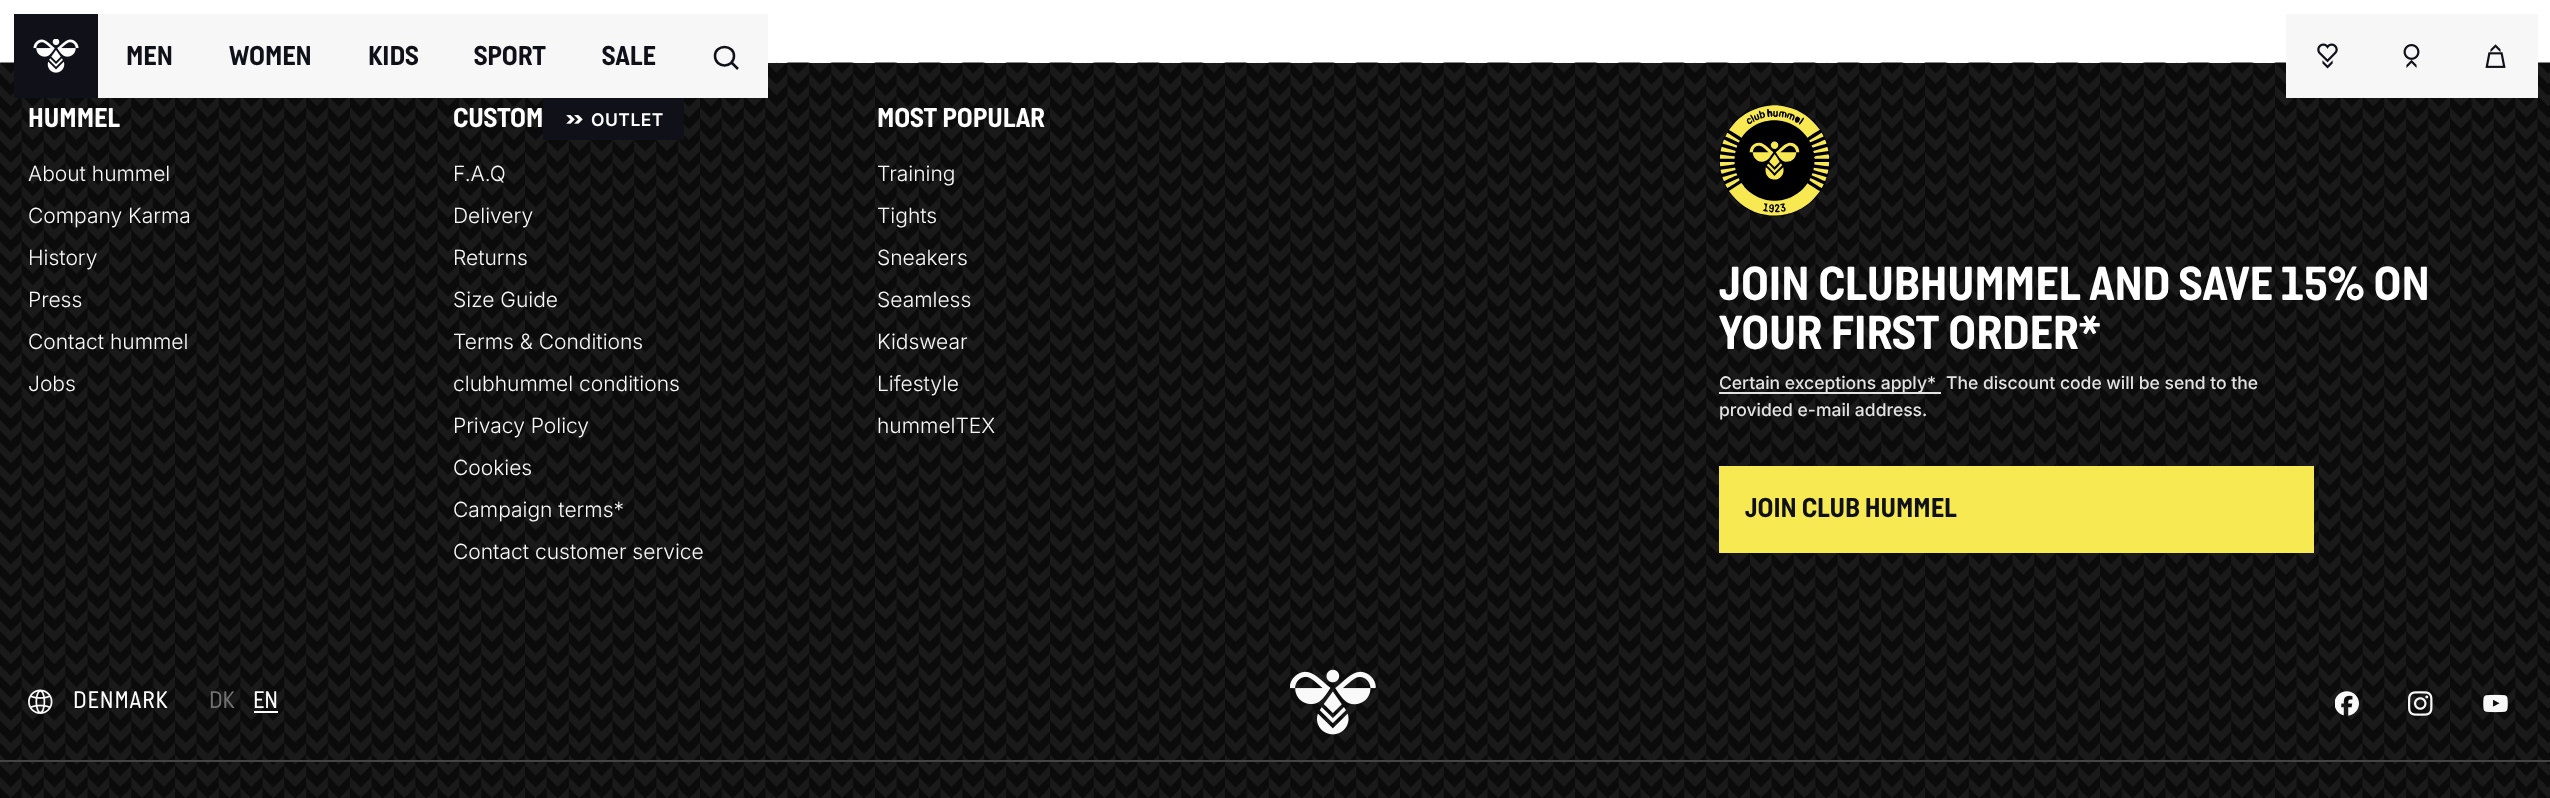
(async () => {
    const canvas = document.querySelector("canvas");
    canvas.width = 2550;
    canvas.height = 798;
    const context = canvas.getContext("2d");
    context.miterLimit = 4;
    context.fontKerning = "normal";
    function write(s, x, y, font, color) {
        context.font = font;
        context.fillStyle = color;
        context.fillText(s, x, y);
    }
    function block(x, y, w, h, color) {
        context.fillStyle = color;
        context.fillRect(x, y, w, h);
    }
    async function photo(src, x, y, w, h) {
        const img = new Image();
        img.src = src;
        await img.decode();
        context.drawImage(img, x, y, w, h);
    }

    block(0, 0, 2550, 798, "rgb(255, 255, 255)");
    block(0, 63, 2550, 735, "rgb(26, 26, 26)");
    await photo("media/6.png", 0, 62, 2550, 736);
    block(14, 14, 84, 84, "rgb(15, 16, 24)");
    await photo("media/1.png", 33, 39, 46, 34);
    block(98, 14, 670, 84, "rgb(247, 247, 247)");
    write("MEN", 126, 65, "bold 28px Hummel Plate", "rgb(15, 16, 24)");
    write("WOMEN", 229, 65, "bold 28px Hummel Plate", "rgb(15, 16, 24)");
    write("KIDS", 368, 65, "bold 28px Hummel Plate", "rgb(15, 16, 24)");
    write("SPORT", 474, 65, "bold 28px Hummel Plate", "rgb(15, 16, 24)");
    write("SALE", 602, 65, "bold 28px Hummel Plate", "rgb(15, 16, 24)");
    context.beginPath();
    context.moveTo(738, 69);
    context.lineTo(731.5, 62.5);
    context.moveTo(734, 56);
    context.bezierCurveTo(734, 68.5, 715, 68.5, 715, 56);
    context.bezierCurveTo(715, 44, 734, 44, 734, 56);
    context.closePath();
    context.strokeStyle = "rgb(15, 16, 24)";
    context.lineWidth = 2.5;
    context.stroke();
    block(543, 98, 141, 42, "rgb(15, 16, 24)");
    await photo("media/2.png", 566, 115, 17, 9);
    context.letterSpacing = "0.5px";
    write("OUTLET", 591, 126, "600 17.5px Inter", "rgb(255, 255, 255)");
    block(2286, 14, 252, 84, "rgb(247, 247, 247)");
    await photo("media/3.png", 2317, 43, 21, 26);
    await photo("media/4.png", 2403, 44, 17, 24);
    await photo("media/5.png", 2485, 44, 21, 24);
    context.letterSpacing = "0px";
    write("HUMMEL", 28, 127, "bold 28px Hummel Plate", "rgb(255, 255, 255)");
    write("About hummel", 28, 181, "300 21px Inter", "rgb(249, 249, 249)");
    write("Company Karma", 28, 223, "300 21px Inter", "rgb(249, 249, 249)");
    write("History", 28, 265, "300 21px Inter", "rgb(249, 249, 249)");
    write("Press", 28, 307, "300 21px Inter", "rgb(249, 249, 249)");
    write("Contact hummel", 28, 349, "300 21px Inter", "rgb(249, 249, 249)");
    write("Jobs", 28, 391, "300 21px Inter", "rgb(249, 249, 249)");
    write("CUSTOM", 453, 127, "bold 28px Hummel Plate", "rgb(255, 255, 255)");
    write("F.A.Q", 453, 181, "300 21px Inter", "rgb(249, 249, 249)");
    write("Delivery", 453, 223, "300 21px Inter", "rgb(249, 249, 249)");
    write("Returns", 453, 265, "300 21px Inter", "rgb(249, 249, 249)");
    write("Size Guide", 453, 307, "300 21px Inter", "rgb(249, 249, 249)");
    write("Terms & Conditions", 453, 349, "300 21px Inter", "rgb(249, 249, 249)");
    write("clubhummel conditions", 453, 391, "300 21px Inter", "rgb(249, 249, 249)");
    write("Privacy Policy", 453, 433, "300 21px Inter", "rgb(249, 249, 249)");
    write("Cookies", 453, 475, "300 21px Inter", "rgb(249, 249, 249)");
    write("Campaign terms*", 453, 517, "300 21px Inter", "rgb(249, 249, 249)");
    write("Contact customer service", 453, 559, "300 21px Inter", "rgb(249, 249, 249)");
    write("MOST POPULAR", 877, 127, "bold 28px Hummel Plate", "rgb(255, 255, 255)");
    write("Training", 877, 181, "300 21px Inter", "rgb(249, 249, 249)");
    write("Tights", 877, 223, "300 21px Inter", "rgb(249, 249, 249)");
    write("Sneakers", 877, 265, "300 21px Inter", "rgb(249, 249, 249)");
    write("Seamless", 877, 307, "300 21px Inter", "rgb(249, 249, 249)");
    write("Kidswear", 877, 349, "300 21px Inter", "rgb(249, 249, 249)");
    write("Lifestyle", 877, 391, "300 21px Inter", "rgb(249, 249, 249)");
    write("hummelTEX", 877, 433, "300 21px Inter", "rgb(249, 249, 249)");
    await photo("media/7.png", 1719, 105, 111, 112);
    write("JOIN CLUBHUMMEL AND SAVE 15% ON", 1719, 300, "bold 49px Hummel Plate", "rgb(255, 255, 255)");
    write("YOUR FIRST ORDER*", 1719, 349, "bold 49px Hummel Plate", "rgb(255, 255, 255)");
    block(1719, 392, 222, 2, "rgb(227, 227, 227)");
    write("Certain exceptions apply*", 1719, 389, "500 17.5px Inter", "rgb(227, 227, 227)");
    write("The discount code will be send to the", 1946, 389, "500 17.5px Inter", "rgb(227, 227, 227)");
    write("provided e-mail address.", 1719, 416, "500 17.5px Inter", "rgb(227, 227, 227)");
    block(1719, 466, 595, 87, "rgb(246, 233, 82)");
    write("JOIN CLUB HUMMEL", 1745, 517, "bold 28px Hummel Plate", "rgb(15, 16, 24)");
    await photo("media/8.png", 28, 689, 25, 25);
    context.letterSpacing = "1px";
    write("DENMARK", 73, 708, "24.5px Hummel Plate", "rgb(255, 255, 255)");
    context.letterSpacing = "0px";
    write("DK", 209, 708, "24.5px Hummel Plate", "rgb(112, 112, 112)");
    write("EN", 253, 708, "24.5px Hummel Plate", "rgb(255, 255, 255)");
    block(254, 711, 24, 2, "rgb(255, 255, 255)");
    await photo("media/9.png", 1290, 669, 86, 66);
    await photo("media/10.png", 2335, 691, 24, 25);
    await photo("media/11.png", 2408, 691, 25, 25);
    await photo("media/12.png", 2483, 694, 25, 19);
    block(0, 760, 2550, 2, "rgb(68, 68, 68)");
})();
